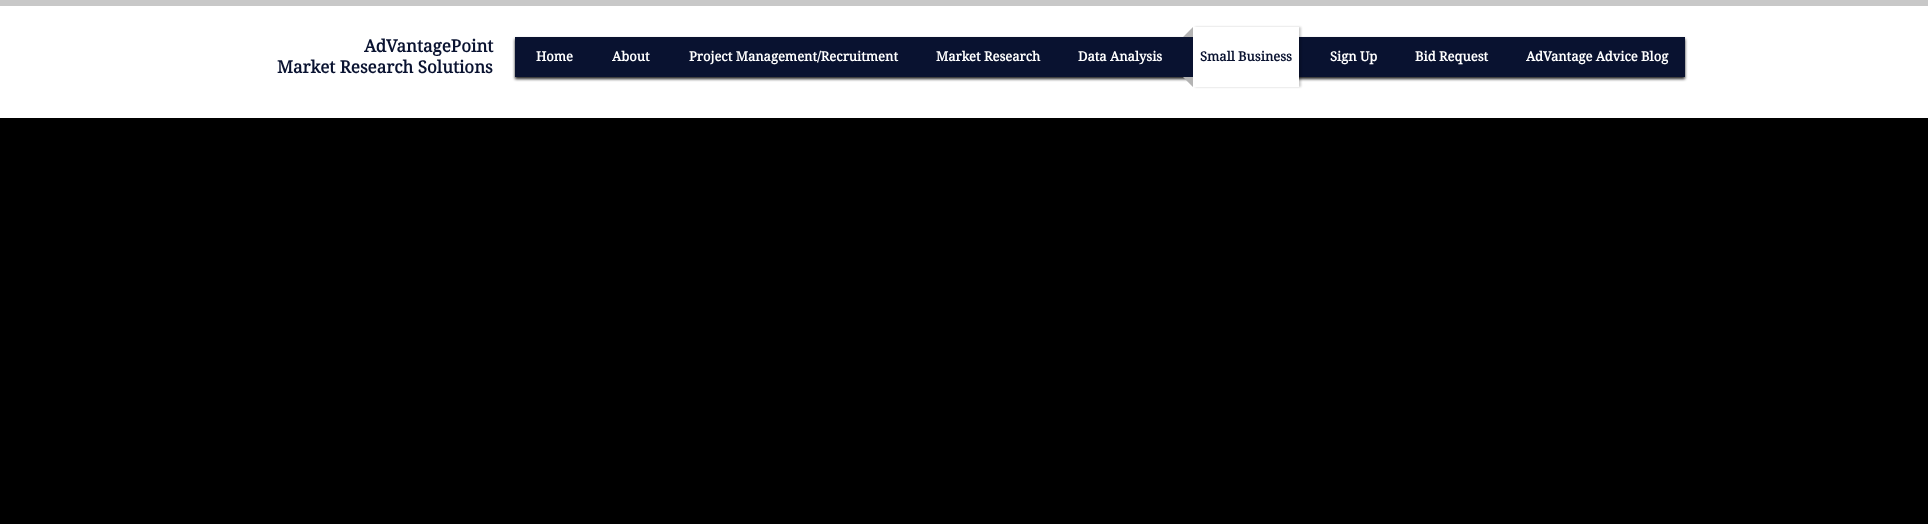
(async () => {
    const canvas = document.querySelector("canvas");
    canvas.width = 1928;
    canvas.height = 524;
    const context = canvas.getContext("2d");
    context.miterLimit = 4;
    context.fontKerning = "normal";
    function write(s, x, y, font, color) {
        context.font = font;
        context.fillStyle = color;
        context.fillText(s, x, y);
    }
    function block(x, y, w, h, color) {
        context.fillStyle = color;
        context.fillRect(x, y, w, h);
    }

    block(0, 0, 1928, 524, "rgb(255, 255, 255)");
    block(0, 0, 1928, 6, "rgb(200, 200, 200)");
    write("AdVantagePoint", 364, 52, "bold 17px 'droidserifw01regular'", "rgb(9, 18, 48)");
    write("Market Research Solutions", 277, 73, "bold 17px 'droidserifw01regular'", "rgb(9, 18, 48)");
    context.fillStyle = "rgba(0, 0, 0, 0.87)";
    context.filter = "blur(1.5px)";
    context.beginPath();
    context.rect(515, 39, 1170, 40);
    context.fill();
    context.filter = "none";
    block(515, 37, 1170, 40, "rgb(9, 18, 48)");
    write("Home", 536, 61, "bold 13px 'droidserifw01regular'", "rgb(255, 255, 255)");
    write("About", 612, 61, "bold 13px 'droidserifw01regular'", "rgb(255, 255, 255)");
    write("Project Management/Recruitment", 689, 61, "bold 13px 'droidserifw01regular'", "rgb(255, 255, 255)");
    write("Market Research", 936, 61, "bold 13px 'droidserifw01regular'", "rgb(255, 255, 255)");
    write("Data Analysis", 1078, 61, "bold 13px 'droidserifw01regular'", "rgb(255, 255, 255)");
    context.fillStyle = "rgba(0, 0, 0, 0.2)";
    context.filter = "blur(1px)";
    context.beginPath();
    context.rect(1195, 27, 106, 60);
    context.fill();
    context.filter = "none";
    context.fillStyle = "rgb(179, 179, 179)";
    context.beginPath();
    context.moveTo(1193, 37);
    context.lineTo(1183, 37);
    context.lineTo(1193, 27);
    context.closePath();
    context.moveTo(1183, 77);
    context.lineTo(1193, 77);
    context.lineTo(1193, 87);
    context.closePath();
    context.fill();
    block(1193, 27, 106, 60, "rgb(255, 255, 255)");
    write("Small Business", 1200, 61, "bold 13px 'droidserifw01regular'", "rgb(9, 18, 48)");
    write("Sign Up", 1330, 61, "bold 13px 'droidserifw01regular'", "rgb(255, 255, 255)");
    write("Bid Request", 1415, 61, "bold 13px 'droidserifw01regular'", "rgb(255, 255, 255)");
    write("AdVantage Advice Blog", 1526, 61, "bold 13px 'droidserifw01regular'", "rgb(255, 255, 255)");
    block(0, 118, 1928, 406, "rgb(0, 0, 0)");
})();
